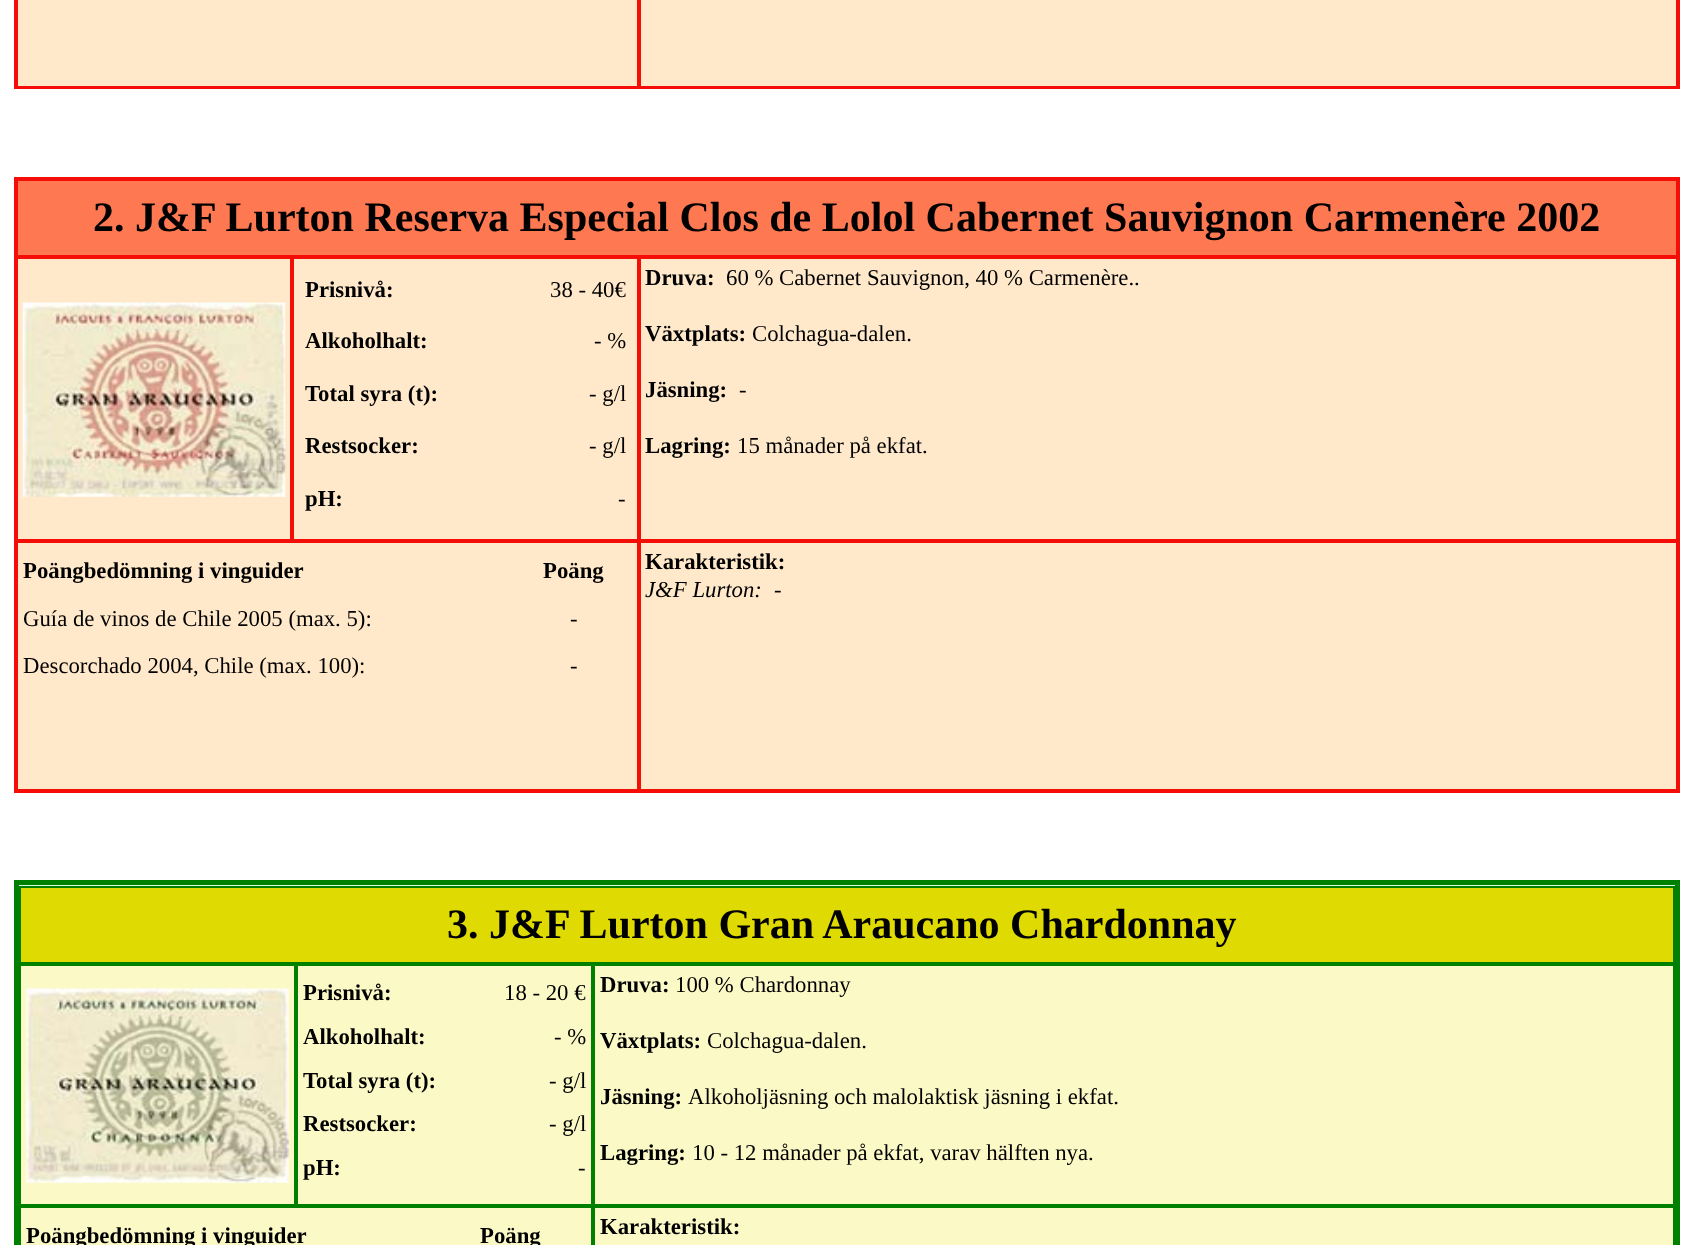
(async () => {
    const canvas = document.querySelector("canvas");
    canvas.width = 1694;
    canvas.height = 1245;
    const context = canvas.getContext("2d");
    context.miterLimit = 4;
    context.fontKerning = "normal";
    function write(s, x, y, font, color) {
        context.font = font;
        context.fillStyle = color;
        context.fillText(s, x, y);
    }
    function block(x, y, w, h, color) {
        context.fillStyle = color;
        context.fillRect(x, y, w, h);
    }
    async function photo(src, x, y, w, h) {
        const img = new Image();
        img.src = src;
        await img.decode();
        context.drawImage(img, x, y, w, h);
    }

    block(0, 0, 1694, 1245, "rgb(255, 255, 255)");
    context.strokeStyle = "rgb(245, 14, 7)";
    context.lineWidth = 2;
    context.strokeRect(15, -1, 1664, 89);
    context.fillStyle = "rgb(255, 233, 202)";
    context.beginPath();
    context.rect(17, -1, 621, 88);
    context.fill();
    context.stroke();
    context.beginPath();
    context.rect(640, -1, 1037, 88);
    context.fill();
    context.stroke();
    context.strokeRect(15, 178, 1664, 614);
    context.fillStyle = "rgb(254, 120, 82)";
    context.beginPath();
    context.rect(17, 180, 1660, 76);
    context.fill();
    context.stroke();
    write("2. J&F Lurton Reserva Especial Clos de Lolol Cabernet Sauvignon Carmenère 2002", 93, 231, "bold 42px Liberation Serif", "rgb(0, 0, 0)");
    context.fillStyle = "rgb(255, 233, 202)";
    context.beginPath();
    context.rect(17, 258, 274, 282);
    context.fill();
    context.stroke();
    await photo("media/1.png", 22, 302, 264, 195);
    context.beginPath();
    context.rect(293, 258, 345, 282);
    context.fill();
    context.stroke();
    write("Prisnivå:", 305, 297, "bold 22.75px Liberation Serif", "rgb(0, 0, 0)");
    write("38 - 40€", 550, 297, "22.75px Liberation Serif", "rgb(0, 0, 0)");
    write("Alkoholhalt:", 305, 348, "bold 22.75px Liberation Serif", "rgb(0, 0, 0)");
    write("- %", 594, 348, "22.75px Liberation Serif", "rgb(0, 0, 0)");
    write("Total syra (t):", 305, 401, "bold 22.75px Liberation Serif", "rgb(0, 0, 0)");
    write("- g/l", 589, 401, "22.75px Liberation Serif", "rgb(0, 0, 0)");
    write("Restsocker:", 305, 453, "bold 22.75px Liberation Serif", "rgb(0, 0, 0)");
    write("- g/l", 589, 453, "22.75px Liberation Serif", "rgb(0, 0, 0)");
    write("pH:", 305, 506, "bold 22.75px Liberation Serif", "rgb(0, 0, 0)");
    write("-", 618, 506, "22.75px Liberation Serif", "rgb(0, 0, 0)");
    context.fillStyle = "rgb(255, 233, 202)";
    context.beginPath();
    context.rect(640, 258, 1037, 282);
    context.fill();
    context.stroke();
    write("Druva:", 645, 285, "bold 22.75px Liberation Serif", "rgb(0, 0, 0)");
    write("60 % Cabernet Sauvignon, 40 % Carmenère..", 726, 285, "22.75px Liberation Serif", "rgb(0, 0, 0)");
    write("Växtplats:", 645, 341, "bold 22.75px Liberation Serif", "rgb(0, 0, 0)");
    write("Colchagua-dalen.", 752, 341, "22.75px Liberation Serif", "rgb(0, 0, 0)");
    write("Jäsning:", 645, 397, "bold 22.75px Liberation Serif", "rgb(0, 0, 0)");
    write("-", 739, 397, "22.75px Liberation Serif", "rgb(0, 0, 0)");
    write("Lagring:", 645, 453, "bold 22.75px Liberation Serif", "rgb(0, 0, 0)");
    write("15 månader på ekfat.", 737, 453, "22.75px Liberation Serif", "rgb(0, 0, 0)");
    context.fillStyle = "rgb(255, 233, 202)";
    context.beginPath();
    context.rect(17, 542, 621, 248);
    context.fill();
    context.stroke();
    write("Poängbedömning i vinguider", 23, 578, "bold 22.75px Liberation Serif", "rgb(0, 0, 0)");
    write("Poäng", 543, 578, "bold 22.75px Liberation Serif", "rgb(0, 0, 0)");
    write("Guía de vinos de Chile 2005 (max. 5):", 23, 626, "22.75px Liberation Serif", "rgb(0, 0, 0)");
    write("-", 570, 626, "22.75px Liberation Serif", "rgb(0, 0, 0)");
    write("Descorchado 2004, Chile (max. 100):", 23, 673, "22.75px Liberation Serif", "rgb(0, 0, 0)");
    write("-", 570, 673, "22.75px Liberation Serif", "rgb(0, 0, 0)");
    context.fillStyle = "rgb(255, 233, 202)";
    context.beginPath();
    context.rect(640, 542, 1037, 248);
    context.fill();
    context.stroke();
    write("Karakteristik:", 645, 569, "bold 22.75px Liberation Serif", "rgb(0, 0, 0)");
    write("J&F Lurton:", 645, 597, "italic 22.75px Liberation Serif", "rgb(0, 0, 0)");
    write("-", 774, 597, "22.75px Liberation Serif", "rgb(0, 0, 0)");
    block(19, 885, 1656, 1, "rgb(217, 255, 222)");
    context.strokeStyle = "rgb(0, 128, 0)";
    context.lineWidth = 5;
    context.strokeRect(16.5, 882.5, 1661, 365);
    context.fillStyle = "rgb(223, 218, 2)";
    context.beginPath();
    context.rect(20, 887, 1654, 76);
    context.fill();
    context.lineWidth = 2;
    context.stroke();
    write("3. J&F Lurton Gran Araucano Chardonnay", 447, 938, "bold 42px Liberation Serif", "rgb(0, 0, 0)");
    context.fillStyle = "rgb(251, 249, 198)";
    context.beginPath();
    context.rect(20, 965, 275, 240);
    context.fill();
    context.stroke();
    await photo("media/2.png", 26, 988, 263, 195);
    context.beginPath();
    context.rect(297, 965, 295, 240);
    context.fill();
    context.stroke();
    write("Prisnivå:", 303, 1000, "bold 22.75px Liberation Serif", "rgb(0, 0, 0)");
    write("18 - 20 €", 504, 1000, "22.75px Liberation Serif", "rgb(0, 0, 0)");
    write("Alkoholhalt:", 303, 1044, "bold 22.75px Liberation Serif", "rgb(0, 0, 0)");
    write("- %", 554, 1044, "22.75px Liberation Serif", "rgb(0, 0, 0)");
    write("Total syra (t):", 303, 1088, "bold 22.75px Liberation Serif", "rgb(0, 0, 0)");
    write("- g/l", 549, 1088, "22.75px Liberation Serif", "rgb(0, 0, 0)");
    write("Restsocker:", 303, 1131, "bold 22.75px Liberation Serif", "rgb(0, 0, 0)");
    write("- g/l", 549, 1131, "22.75px Liberation Serif", "rgb(0, 0, 0)");
    write("pH:", 303, 1175, "bold 22.75px Liberation Serif", "rgb(0, 0, 0)");
    write("-", 578, 1175, "22.75px Liberation Serif", "rgb(0, 0, 0)");
    context.fillStyle = "rgb(251, 249, 198)";
    context.beginPath();
    context.rect(594, 965, 1080, 240);
    context.fill();
    context.stroke();
    write("Druva:", 600, 992, "bold 22.75px Liberation Serif", "rgb(0, 0, 0)");
    write("100 % Chardonnay", 675, 992, "22.75px Liberation Serif", "rgb(0, 0, 0)");
    write("Växtplats:", 600, 1048, "bold 22.75px Liberation Serif", "rgb(0, 0, 0)");
    write("Colchagua-dalen.", 707, 1048, "22.75px Liberation Serif", "rgb(0, 0, 0)");
    write("Jäsning:", 600, 1104, "bold 22.75px Liberation Serif", "rgb(0, 0, 0)");
    write("Alkoholjäsning och malolaktisk jäsning i ekfat.", 688, 1104, "22.75px Liberation Serif", "rgb(0, 0, 0)");
    write("Lagring:", 600, 1160, "bold 22.75px Liberation Serif", "rgb(0, 0, 0)");
    write("10 - 12 månader på ekfat, varav hälften nya.", 692, 1160, "22.75px Liberation Serif", "rgb(0, 0, 0)");
    context.fillStyle = "rgb(251, 249, 198)";
    context.beginPath();
    context.rect(20, 1207, 572, 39);
    context.fill();
    context.stroke();
    write("Poängbedömning i vinguider", 26, 1243, "bold 22.75px Liberation Serif", "rgb(0, 0, 0)");
    write("Poäng", 480, 1243, "bold 22.75px Liberation Serif", "rgb(0, 0, 0)");
    context.fillStyle = "rgb(251, 249, 198)";
    context.beginPath();
    context.rect(594, 1207, 1080, 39);
    context.fill();
    context.stroke();
    write("Karakteristik:", 600, 1234, "bold 22.75px Liberation Serif", "rgb(0, 0, 0)");
})();
